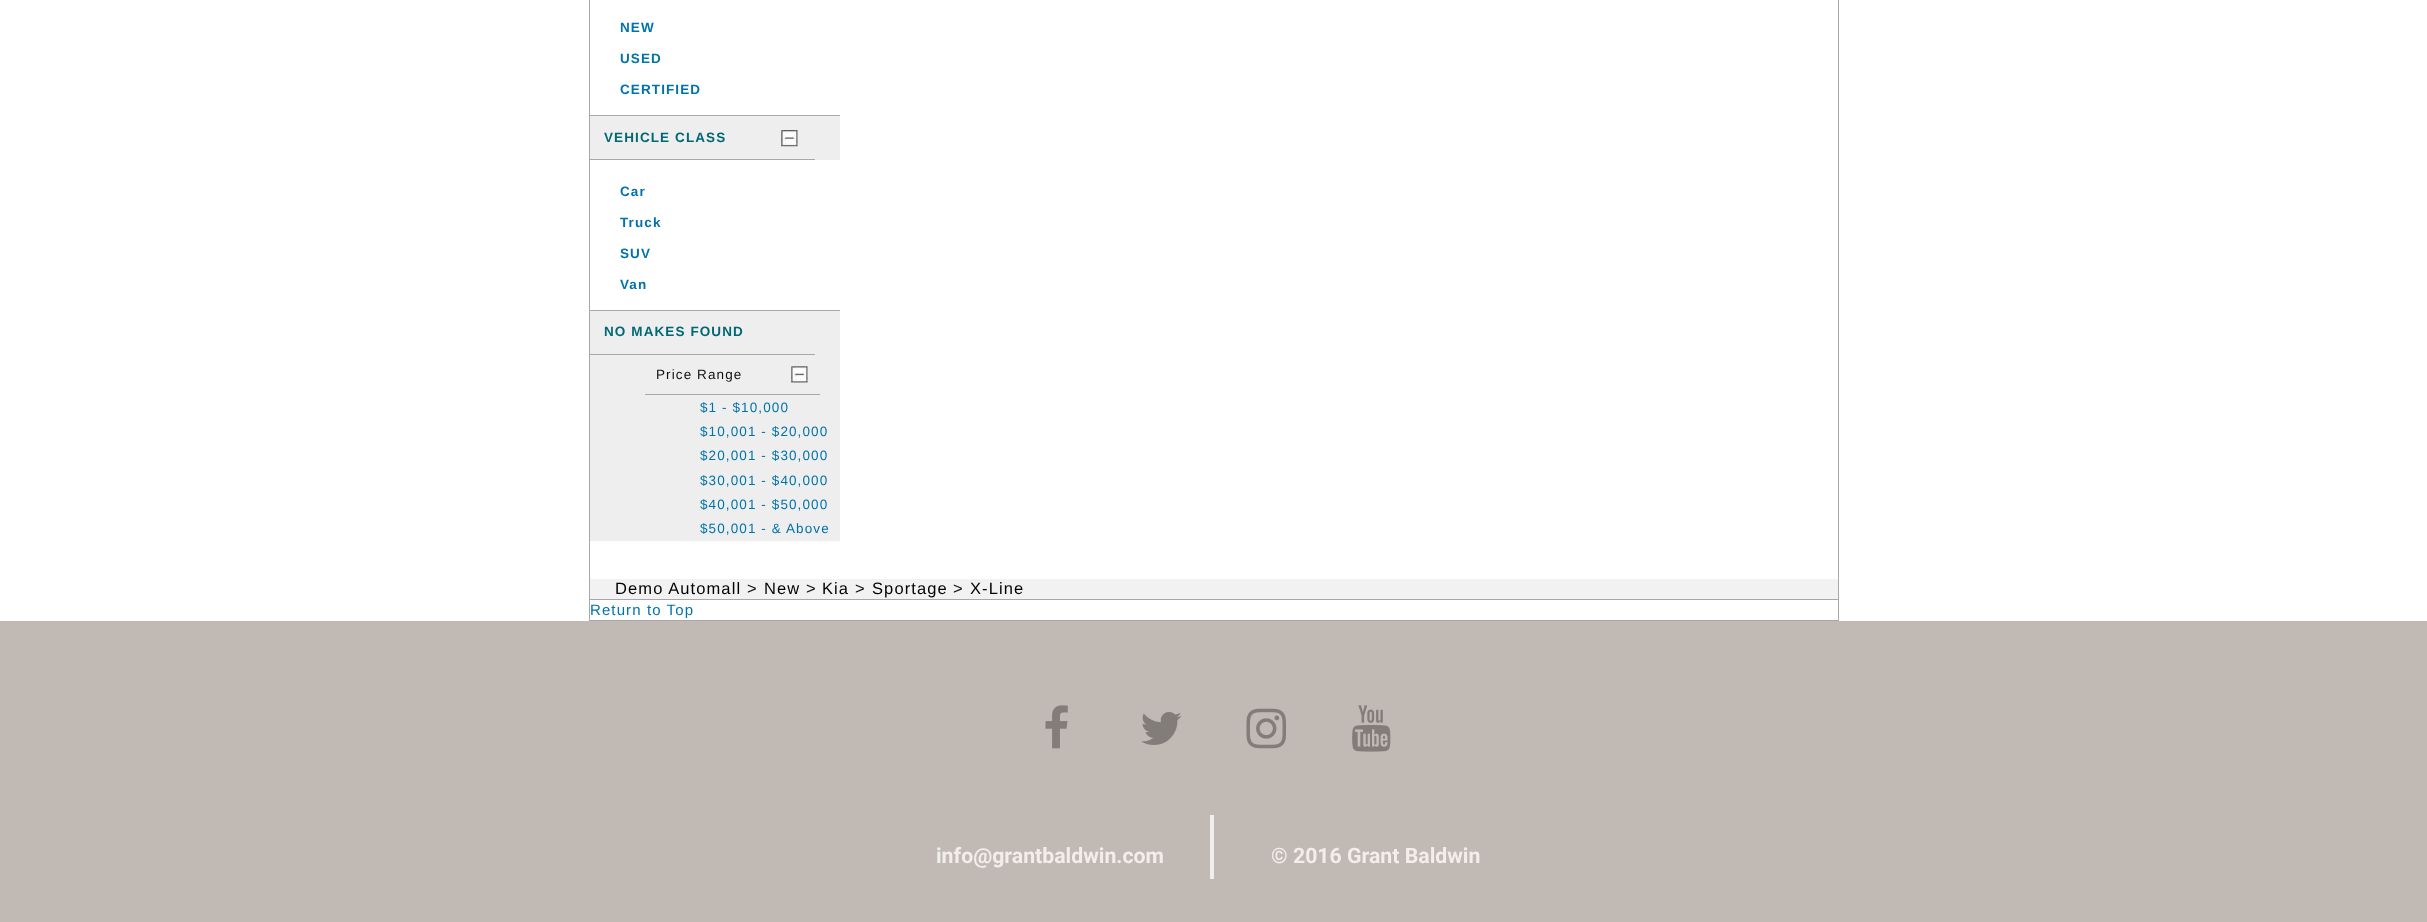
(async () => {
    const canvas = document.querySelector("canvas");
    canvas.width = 2427;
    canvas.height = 922;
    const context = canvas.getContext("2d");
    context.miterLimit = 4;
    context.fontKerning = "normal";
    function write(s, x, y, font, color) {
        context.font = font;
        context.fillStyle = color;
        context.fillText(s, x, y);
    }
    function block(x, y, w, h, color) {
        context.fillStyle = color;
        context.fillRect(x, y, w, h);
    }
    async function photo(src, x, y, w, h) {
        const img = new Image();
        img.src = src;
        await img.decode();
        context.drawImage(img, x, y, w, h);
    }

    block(0, 0, 2427, 922, "rgb(255, 255, 255)");
    context.strokeStyle = "rgb(168, 168, 168)";
    context.strokeRect(589.5, -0.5, 1249, 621);
    block(590, 116, 250, 425, "rgb(238, 238, 238)");
    block(590, 115, 250, 1, "rgb(168, 168, 168)");
    context.letterSpacing = "1.1px";
    write("NEW", 620, 32, "bold 13.5px Liberation Sans", "rgb(0, 115, 170)");
    write("USED", 620, 63, "bold 13.5px Liberation Sans", "rgb(0, 115, 170)");
    write("CERTIFIED", 620, 94, "bold 13.5px Liberation Sans", "rgb(0, 115, 170)");
    block(590, 159, 225, 1, "rgb(168, 168, 168)");
    await photo("media/1.png", 781, 130, 17, 17);
    write("VEHICLE CLASS", 604, 142, "bold 13.5px Liberation Sans", "rgb(0, 104, 117)");
    block(590, 160, 250, 150, "rgb(255, 255, 255)");
    block(590, 310, 250, 1, "rgb(168, 168, 168)");
    write("Car", 620, 196, "bold 13.5px Liberation Sans", "rgb(0, 115, 170)");
    write("Truck", 620, 227, "bold 13.5px Liberation Sans", "rgb(0, 115, 170)");
    write("SUV", 620, 258, "bold 13.5px Liberation Sans", "rgb(0, 115, 170)");
    write("Van", 620, 289, "bold 13.5px Liberation Sans", "rgb(0, 115, 170)");
    block(590, 354, 225, 1, "rgb(168, 168, 168)");
    write("NO MAKES FOUND", 604, 336, "bold 13.5px Liberation Sans", "rgb(0, 104, 117)");
    block(645, 394, 175, 1, "rgb(168, 168, 168)");
    await photo("media/2.png", 791, 366, 17, 17);
    write("Price Range", 656, 379, "13.5px Liberation Sans", "rgb(17, 17, 17)");
    write("$1 - $10,000", 700, 412, "13.5px Liberation Sans", "rgb(0, 115, 170)");
    write("$10,001 - $20,000", 700, 436, "13.5px Liberation Sans", "rgb(0, 115, 170)");
    write("$20,001 - $30,000", 700, 460, "13.5px Liberation Sans", "rgb(0, 115, 170)");
    write("$30,001 - $40,000", 700, 485, "13.5px Liberation Sans", "rgb(0, 115, 170)");
    write("$40,001 - $50,000", 700, 509, "13.5px Liberation Sans", "rgb(0, 115, 170)");
    write("$50,001 - & Above", 700, 533, "13.5px Liberation Sans", "rgb(0, 115, 170)");
    block(590, 579, 1248, 20, "rgb(242, 242, 242)");
    block(590, 599, 1248, 1, "rgb(168, 168, 168)");
    write("Demo Automall", 615, 594, "16.5px Liberation Sans", "rgb(0, 0, 0)");
    write(">", 747, 594, "16.5px Liberation Sans", "rgb(17, 17, 17)");
    write("New", 764, 594, "16.5px Liberation Sans", "rgb(0, 0, 0)");
    write(">", 806, 594, "16.5px Liberation Sans", "rgb(17, 17, 17)");
    write("Kia", 822, 594, "16.5px Liberation Sans", "rgb(0, 0, 0)");
    write(">", 855, 594, "16.5px Liberation Sans", "rgb(17, 17, 17)");
    write("Sportage", 872, 594, "16.5px Liberation Sans", "rgb(0, 0, 0)");
    write(">", 953, 594, "16.5px Liberation Sans", "rgb(17, 17, 17)");
    write("X-Line", 970, 594, "16.5px Liberation Sans", "rgb(0, 0, 0)");
    write("Return to Top", 590, 615, "15px Liberation Sans", "rgb(0, 115, 170)");
    block(0, 621, 2427, 301, "rgb(193, 185, 179)");
    await photo("media/3.png", 1045, 705, 23, 44);
    await photo("media/4.png", 1141, 712, 41, 33);
    await photo("media/5.png", 1246, 708, 40, 41);
    await photo("media/6.png", 1352, 705, 39, 47);
    block(1210, 815, 4, 64, "rgb(242, 238, 236)");
    context.letterSpacing = "0px";
    write("info@grantbaldwin.com", 936, 863, "bold 21.25px Roboto", "rgb(242, 238, 236)");
    write("© 2016 Grant Baldwin", 1271, 863, "bold 21.25px Roboto", "rgb(242, 238, 236)");
})();
